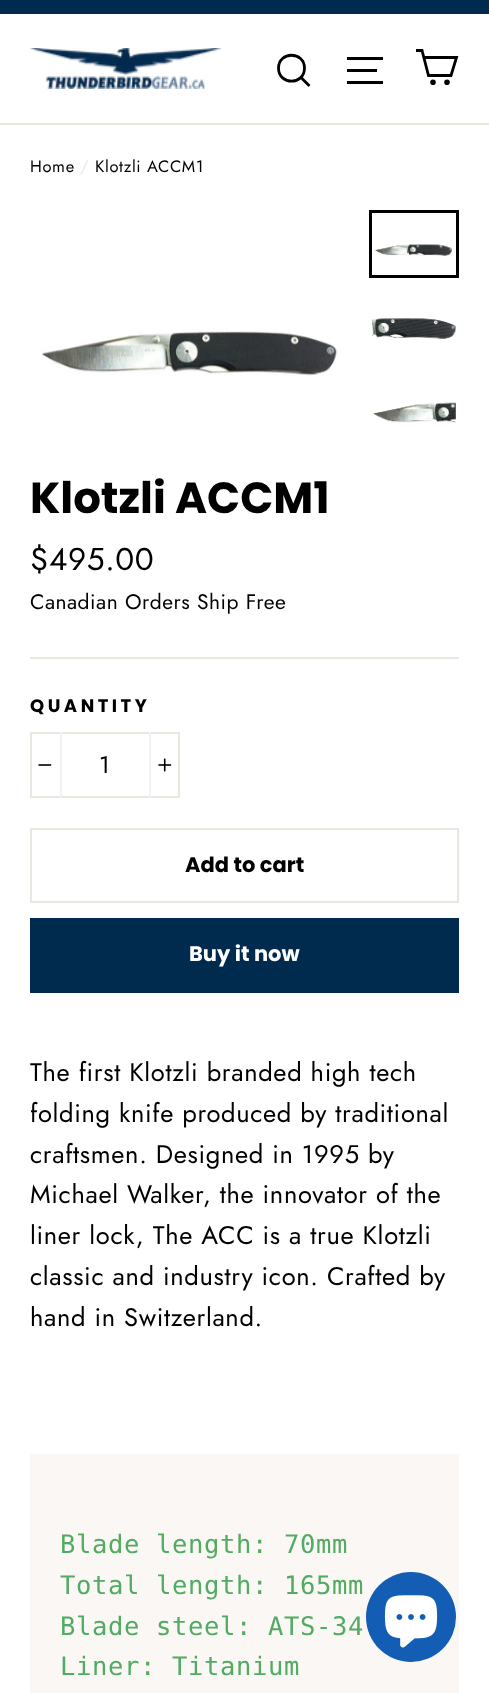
(async () => {
    const canvas = document.querySelector("canvas");
    canvas.width = 489;
    canvas.height = 1693;
    const context = canvas.getContext("2d");
    context.miterLimit = 4;
    context.fontKerning = "normal";
    function write(s, x, y, font, color) {
        context.font = font;
        context.fillStyle = color;
        context.fillText(s, x, y);
    }
    function block(x, y, w, h, color) {
        context.fillStyle = color;
        context.fillRect(x, y, w, h);
    }
    async function photo(src, x, y, w, h) {
        const img = new Image();
        img.src = src;
        await img.decode();
        context.drawImage(img, x, y, w, h);
    }

    block(0, 0, 489, 1693, "rgb(255, 255, 255)");
    block(0, 0, 489, 14, "rgb(0, 42, 78)");
    block(0, 123, 489, 2, "rgb(232, 232, 225)");
    await photo("media/1.png", 30, 48, 191, 41);
    context.beginPath();
    context.moveTo(304.5, 68);
    context.bezierCurveTo(304.5, 85.5, 278.5, 85.5, 278.5, 68);
    context.bezierCurveTo(278.5, 51, 304.5, 51, 304.5, 68);
    context.closePath();
    context.moveTo(309.5, 86);
    context.lineTo(301, 77.5);
    context.strokeStyle = "rgb(0, 0, 0)";
    context.lineWidth = 2.8;
    context.stroke();
    context.beginPath();
    context.moveTo(347, 58.5);
    context.lineTo(383, 58.5);
    context.moveTo(347, 70.5);
    context.lineTo(377, 70.5);
    context.moveTo(347, 82.5);
    context.lineTo(383, 82.5);
    context.stroke();
    context.beginPath();
    context.moveTo(424, 57.5);
    context.lineTo(456.5, 57.5);
    context.lineTo(451, 75.5);
    context.lineTo(428.5, 75.5);
    context.lineTo(422, 50.5);
    context.lineTo(416, 50.5);
    context.stroke();
    context.beginPath();
    context.arc(433, 82.3, 1.4, 0, Math.PI * 2);
    context.stroke();
    context.beginPath();
    context.arc(447, 82.3, 1.4, 0, Math.PI * 2);
    context.stroke();
    context.letterSpacing = "0.65px";
    write("Home", 30, 172, "16.5px Jost", "rgb(0, 0, 0)");
    write("/", 80, 172, "16.5px Jost", "rgb(232, 232, 225)");
    write("Klotzli ACCM1", 95, 172, "16.5px Jost", "rgb(0, 0, 0)");
    await photo("media/2.png", 41, 331, 297, 45);
    context.lineWidth = 3;
    context.strokeRect(370.5, 211.5, 87, 65);
    await photo("media/3.png", 374, 244, 78, 12);
    await photo("media/4.png", 372, 318, 84, 21);
    await photo("media/5.png", 373, 402, 83, 21);
    context.letterSpacing = "0px";
    write("Klotzli ACCM1", 30, 513, "bold 43.5px Poppins", "rgb(0, 0, 0)");
    context.letterSpacing = "0.65px";
    write("$495.00", 30, 570, "31.5px Jost", "rgb(0, 0, 0)");
    context.letterSpacing = "0.5px";
    write("Canadian Orders Ship Free", 30, 609, "21px Jost", "rgb(0, 0, 0)");
    block(30, 657, 429, 2, "rgb(232, 232, 225)");
    context.letterSpacing = "3.5px";
    write("QUANTITY", 30, 712, "bold 18px Poppins", "rgb(0, 0, 0)");
    context.strokeStyle = "rgb(232, 232, 225)";
    context.lineWidth = 2;
    context.strokeRect(31, 733, 148, 64);
    block(60, 732, 2, 66, "rgb(242, 242, 242)");
    await photo("media/6.png", 38, 764, 14, 2);
    context.letterSpacing = "1px";
    write("1", 99, 773, "24px Jost", "rgb(0, 0, 0)");
    block(149, 732, 2, 66, "rgb(242, 242, 242)");
    await photo("media/7.png", 158, 758, 14, 14);
    context.strokeRect(31, 829, 427, 73);
    context.letterSpacing = "0px";
    write("Add to cart", 185, 872, "bold 21px Poppins", "rgb(0, 0, 0)");
    block(30, 918, 429, 75, "rgb(0, 42, 78)");
    write("Buy it now", 189, 961, "bold 21px Poppins", "rgb(255, 255, 255)");
    context.letterSpacing = "0.65px";
    write("The first Klotzli branded high tech", 30, 1081, "25.5px Jost", "rgb(0, 0, 0)");
    write("folding knife produced by traditional", 30, 1122, "25.5px Jost", "rgb(0, 0, 0)");
    write("craftsmen. Designed in 1995 by", 30, 1163, "25.5px Jost", "rgb(0, 0, 0)");
    write("Michael Walker, the innovator of the", 30, 1203, "25.5px Jost", "rgb(0, 0, 0)");
    write("liner lock, The ACC is a true Klotzli", 30, 1244, "25.5px Jost", "rgb(0, 0, 0)");
    write("classic and industry icon. Crafted by", 30, 1285, "25.5px Jost", "rgb(0, 0, 0)");
    write("hand in Switzerland.", 30, 1326, "25.5px Jost", "rgb(0, 0, 0)");
    block(30, 1454, 429, 239, "rgb(250, 247, 245)");
    write("Blade length: 70mm", 60, 1553, "25.5px DejaVu Sans Mono", "rgb(81, 171, 98)");
    write("Total length: 165mm", 60, 1594, "25.5px DejaVu Sans Mono", "rgb(81, 171, 98)");
    write("Blade steel: ATS-34", 60, 1635, "25.5px DejaVu Sans Mono", "rgb(81, 171, 98)");
    write("Liner: Titanium", 60, 1675, "25.5px DejaVu Sans Mono", "rgb(81, 171, 98)");
    context.fillStyle = "rgb(20, 93, 180)";
    context.beginPath();
    context.arc(411, 1617, 45, 0, Math.PI * 2);
    context.fill();
    await photo("media/8.png", 384, 1595, 54, 53);
})();
